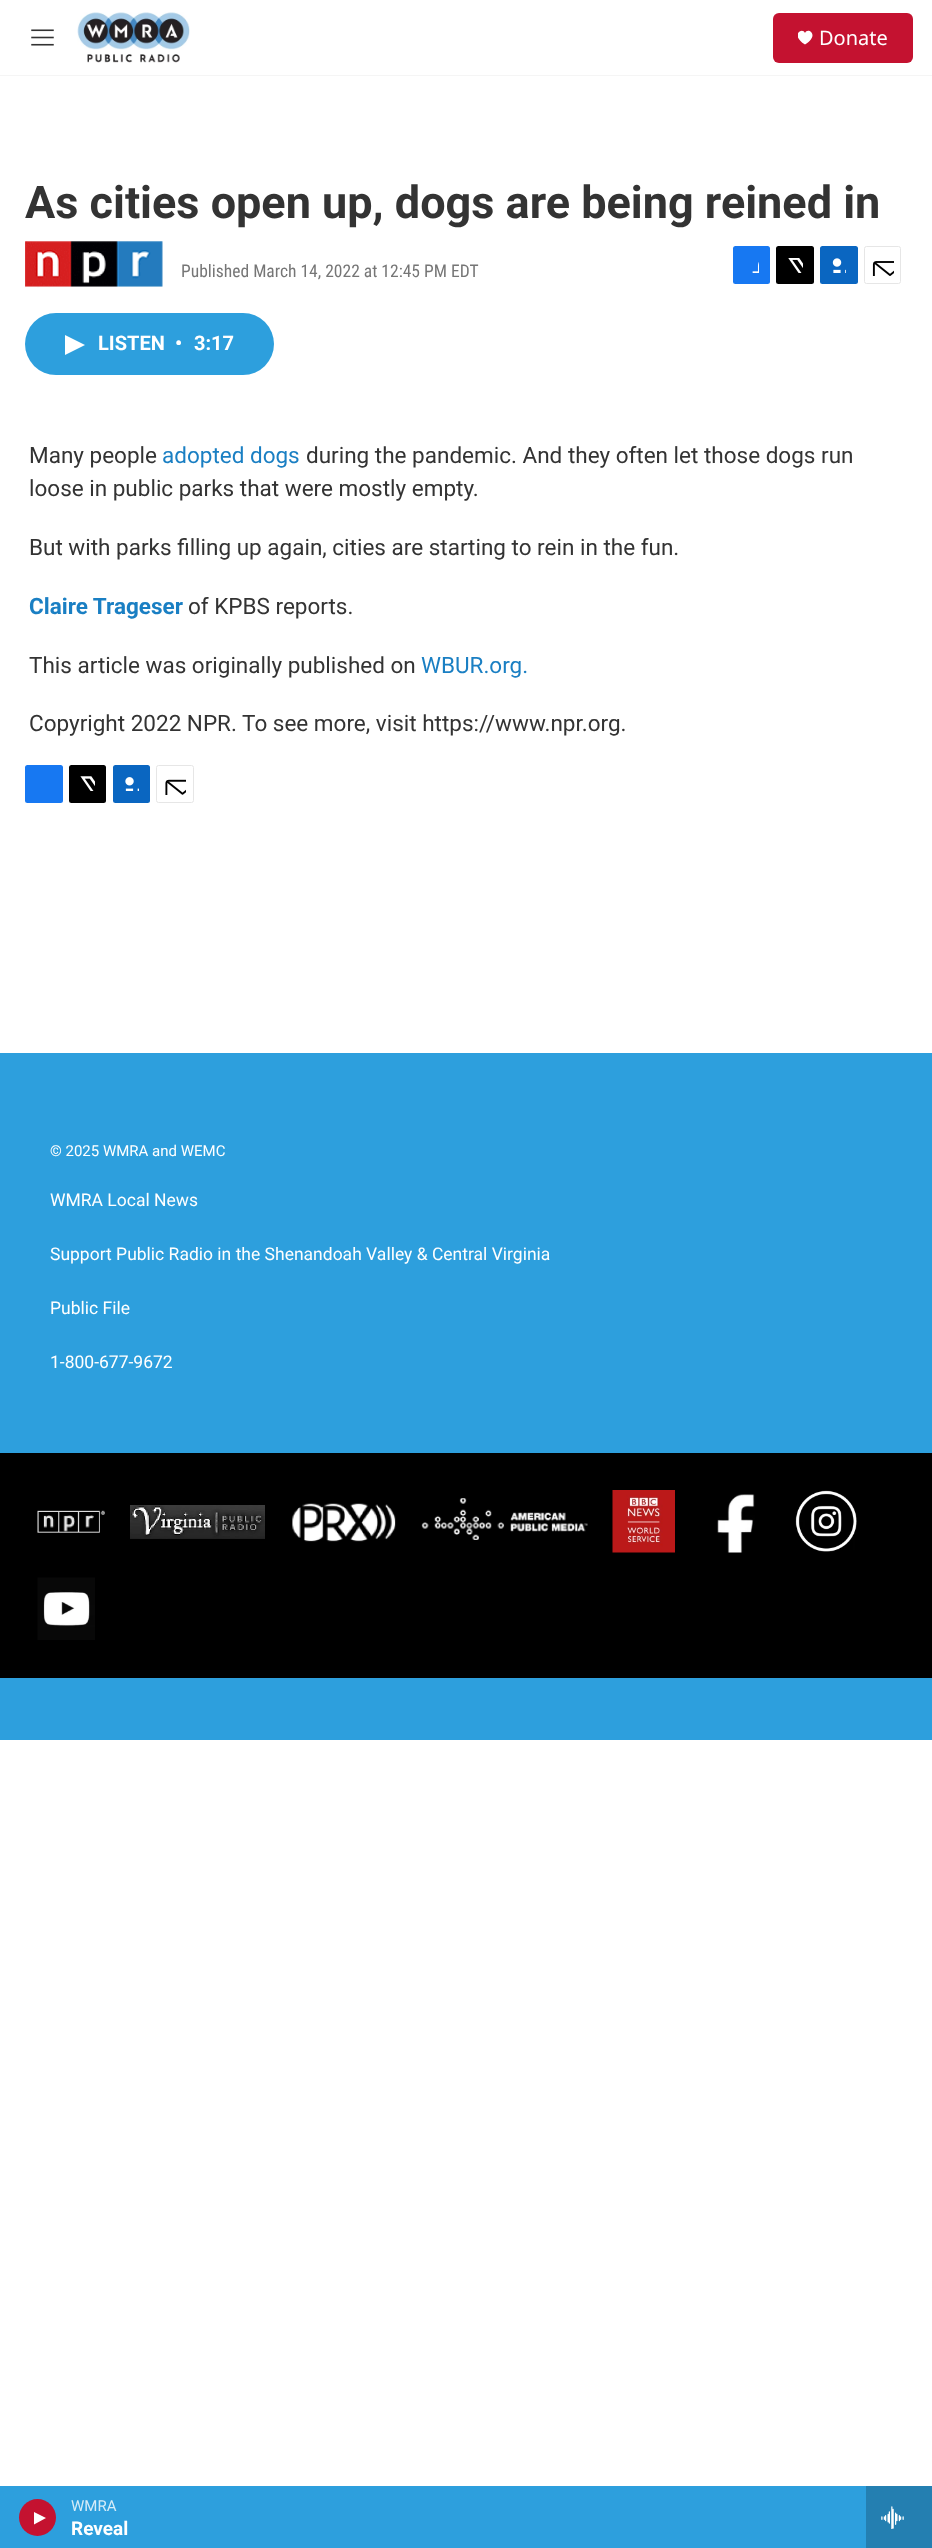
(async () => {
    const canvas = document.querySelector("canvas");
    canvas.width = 932;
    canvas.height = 2548;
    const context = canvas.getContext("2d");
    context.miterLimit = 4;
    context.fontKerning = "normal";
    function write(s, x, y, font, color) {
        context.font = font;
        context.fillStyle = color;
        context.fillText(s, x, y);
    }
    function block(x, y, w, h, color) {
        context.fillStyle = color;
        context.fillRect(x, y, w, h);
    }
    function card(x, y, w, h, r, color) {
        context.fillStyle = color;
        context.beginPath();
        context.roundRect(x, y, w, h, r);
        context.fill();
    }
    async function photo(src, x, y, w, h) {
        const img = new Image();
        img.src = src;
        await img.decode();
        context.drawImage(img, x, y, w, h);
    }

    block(0, 0, 932, 2548, "rgb(255, 255, 255)");
    block(0, 75, 932, 1, "rgb(245, 245, 245)");
    await photo("media/1.png", 31, 29, 23, 17);
    await photo("media/2.png", 77, 12, 113, 51);
    card(773, 13, 140, 50, 6, "rgb(196, 18, 48)");
    context.save();
    context.beginPath();
    context.rect(798, 30, 15, 15);
    context.clip();
    context.fillStyle = "rgb(255, 255, 255)";
    context.beginPath();
    context.moveTo(805, 33);
    context.bezierCurveTo(802.5, 26.5, 789.5, 35, 805, 44.5);
    context.bezierCurveTo(820.5, 35, 807.5, 26.5, 805, 33);
    context.closePath();
    context.fill();
    context.restore();
    write("Donate", 819, 45, "20px Noto Sans", "rgb(255, 255, 255)");
    block(0, 2486, 866, 62, "rgb(45, 159, 221)");
    context.fillStyle = "rgb(196, 18, 48)";
    context.beginPath();
    context.arc(37.5, 2517.5, 18.5, 0, Math.PI * 2);
    context.fill();
    context.fillStyle = "rgb(255, 255, 255)";
    context.beginPath();
    context.moveTo(34, 2512);
    context.lineTo(46, 2518);
    context.lineTo(34, 2524.5);
    context.closePath();
    context.fill();
    write("WMRA", 71, 2511, "15px Roboto", "rgb(213, 236, 248)");
    write("Reveal", 71, 2535, "bold 19px 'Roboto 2'", "rgb(255, 255, 255)");
    block(866, 2486, 66, 62, "rgb(36, 127, 177)");
    await photo("media/3.png", 881, 2506, 23, 23);
    write("As cities open up, dogs are being reined in", 25, 218, "bold 45px Roboto", "rgb(51, 51, 51)");
    await photo("media/4.png", 25, 241, 138, 47);
    write("Published March 14, 2022 at 12:45 PM EDT", 181, 277, "17.5px Roboto Condensed", "rgb(118, 118, 118)");
    card(733, 246, 37, 38, 2.5, "rgb(23, 120, 242)");
    await photo("media/5.png", 752, 262, 7, 11);
    card(776, 246, 38, 38, 2.5, "rgb(0, 0, 0)");
    await photo("media/6.png", 788, 258, 15, 15);
    card(820, 246, 38, 38, 2.5, "rgb(10, 102, 193)");
    await photo("media/7.png", 832, 258, 14, 15);
    context.beginPath();
    context.roundRect(864.5, 246.5, 36, 37, 2);
    context.strokeStyle = "rgb(230, 230, 230)";
    context.stroke();
    await photo("media/8.png", 872, 261, 22, 15);
    card(25, 313, 249, 62, 31, "rgb(45, 159, 221)");
    context.fillStyle = "rgb(255, 255, 255)";
    context.beginPath();
    context.moveTo(65, 335);
    context.lineTo(85, 345);
    context.lineTo(65, 355);
    context.closePath();
    context.fill();
    write("LISTEN", 98, 350, "bold 20px 'Roboto 2'", "rgb(255, 255, 255)");
    write("•", 175, 350, "bold 20px 'Roboto 2'", "rgb(255, 255, 255)");
    write("3:17", 194, 350, "bold 20px 'Roboto 2'", "rgb(255, 255, 255)");
    write("Many people", 29, 463, "22.5px Roboto", "rgb(51, 51, 51)");
    write("adopted dogs", 162, 463, "22.5px Roboto", "rgb(26, 127, 195)");
    write("during the pandemic. And they often let those dogs run", 306, 463, "22.5px Roboto", "rgb(51, 51, 51)");
    write("loose in public parks that were mostly empty.", 29, 496, "22.5px Roboto", "rgb(51, 51, 51)");
    write("But with parks filling up again, cities are starting to rein in the fun.", 29, 555, "22.5px Roboto", "rgb(51, 51, 51)");
    write("Claire Trageser", 29, 614, "bold 22.5px 'Roboto 2'", "rgb(26, 127, 195)");
    write("of KPBS reports.", 188, 614, "22.5px Roboto", "rgb(51, 51, 51)");
    write("This article was originally published on", 29, 673, "22.5px Roboto", "rgb(51, 51, 51)");
    write("WBUR.org.", 421, 673, "22.5px Roboto", "rgb(26, 127, 195)");
    write("Copyright 2022 NPR. To see more, visit https://www.npr.org.", 29, 731, "22.5px Roboto", "rgb(51, 51, 51)");
    card(25, 765, 38, 38, 2.5, "rgb(23, 120, 242)");
    card(69, 765, 37, 38, 2.5, "rgb(0, 0, 0)");
    await photo("media/9.png", 80, 776, 15, 15);
    card(113, 765, 37, 38, 2.5, "rgb(10, 102, 193)");
    await photo("media/10.png", 125, 777, 14, 14);
    context.beginPath();
    context.roundRect(156.5, 765.5, 37, 37, 2);
    context.stroke();
    await photo("media/11.png", 165, 779, 21, 16);
    block(0, 1053, 932, 687, "rgb(45, 159, 221)");
    write("© 2025 WMRA and WEMC", 50, 1156, "15px Roboto", "rgb(255, 255, 255)");
    write("WMRA Local News", 50, 1206, "17.5px Roboto", "rgb(255, 255, 255)");
    write("Support Public Radio in the Shenandoah Valley & Central Virginia", 50, 1260, "17.5px Roboto", "rgb(255, 255, 255)");
    write("Public File", 50, 1314, "17.5px Roboto", "rgb(255, 255, 255)");
    write("1-800-677-9672", 50, 1368, "17.5px Roboto", "rgb(255, 255, 255)");
    block(0, 1453, 932, 225, "rgb(0, 0, 0)");
    await photo("media/12.png", 37, 1510, 68, 23);
    await photo("media/13.png", 130, 1505, 135, 34);
    await photo("media/14.png", 292, 1503, 104, 39);
    await photo("media/15.png", 421, 1498, 167, 42);
    await photo("media/16.png", 612, 1490, 63, 63);
    await photo("media/17.png", 717, 1494, 38, 59);
    await photo("media/18.png", 795, 1490, 62, 62);
    await photo("media/19.png", 37, 1577, 58, 63);
})();
